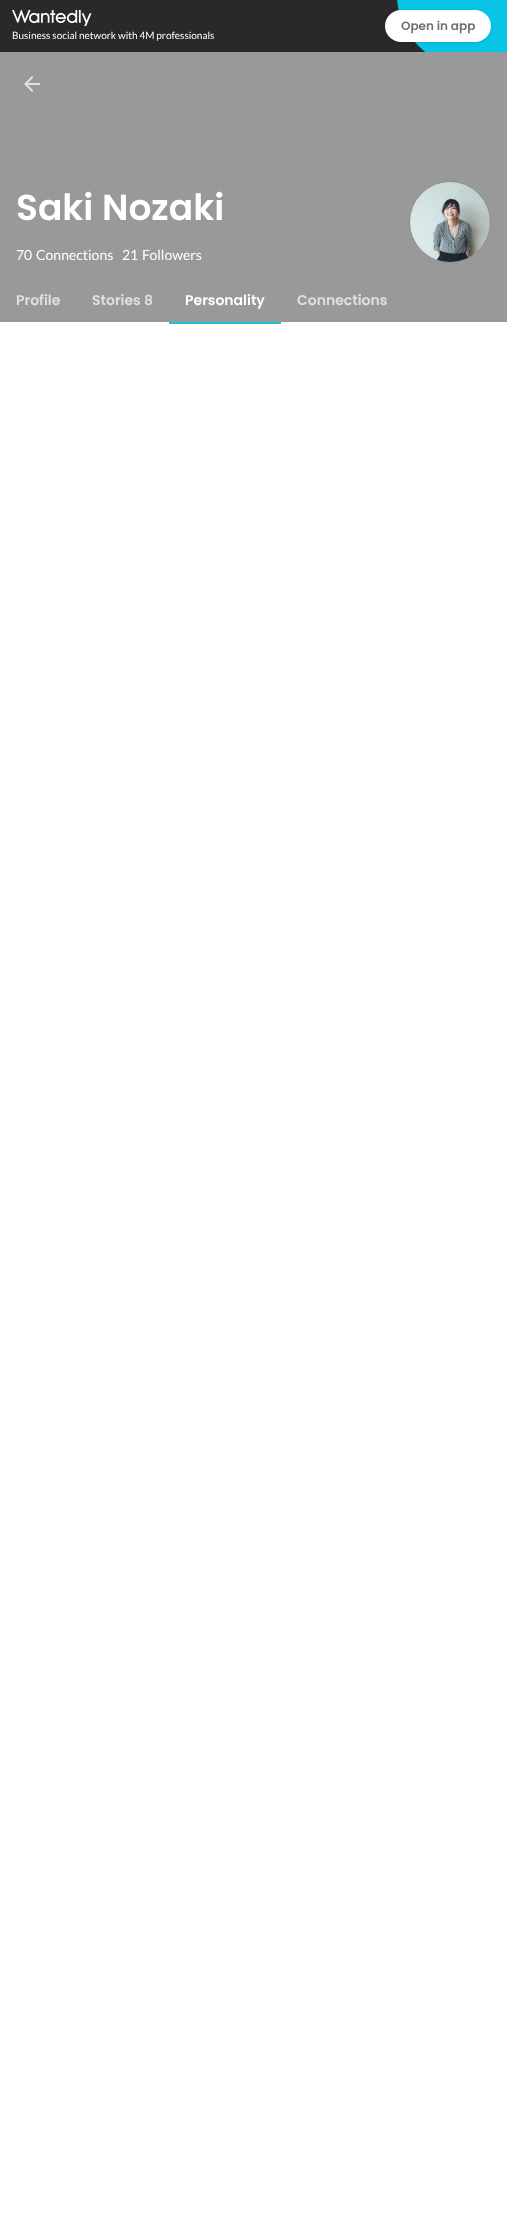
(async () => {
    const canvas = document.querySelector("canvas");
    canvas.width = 507;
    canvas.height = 2235;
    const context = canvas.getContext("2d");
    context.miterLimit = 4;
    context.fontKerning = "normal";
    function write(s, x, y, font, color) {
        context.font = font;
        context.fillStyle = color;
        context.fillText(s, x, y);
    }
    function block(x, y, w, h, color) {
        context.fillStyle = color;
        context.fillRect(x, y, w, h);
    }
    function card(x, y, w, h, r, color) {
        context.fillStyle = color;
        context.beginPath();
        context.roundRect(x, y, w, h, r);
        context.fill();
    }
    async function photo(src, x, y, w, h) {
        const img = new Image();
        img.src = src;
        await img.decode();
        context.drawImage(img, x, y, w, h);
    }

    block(0, 0, 507, 2235, "rgb(255, 255, 255)");
    block(0, 0, 429, 52, "rgb(41, 41, 41)");
    card(397, -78, 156, 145, 78, "rgb(8, 197, 231)");
    context.fillStyle = "rgba(0, 0, 0, 0.1)";
    context.filter = "blur(1.5px)";
    context.beginPath();
    context.roundRect(385, 11, 106, 32, 16);
    context.fill();
    context.filter = "none";
    card(385, 10, 106, 32, 16, "rgb(255, 255, 255)");
    write("Open in app", 401, 30, "600 12px Poppins", "rgb(112, 112, 112)");
    await photo("media/1.png", 12, 10, 80, 16);
    write("Business social network with 4M professionals", 12, 39, "10px Lato", "rgb(255, 255, 255)");
    block(0, 52, 507, 270, "rgb(153, 153, 153)");
    await photo("media/2.png", 24, 76, 16, 16);
    write("Saki Nozaki", 16, 220, "600 36px Poppins", "rgb(255, 255, 255)");
    write("70", 16, 260, "14px Lato", "rgb(255, 255, 255)");
    write("Connections", 36, 260, "14px Lato", "rgb(255, 255, 255)");
    write("21", 122, 260, "14px Lato", "rgb(255, 255, 255)");
    write("Followers", 142, 260, "14px Lato", "rgb(255, 255, 255)");
    context.beginPath();
    context.arc(450, 222, 40.5, 0, Math.PI * 2);
    context.strokeStyle = "rgb(144, 144, 144)";
    context.stroke();
    await photo("media/3.png", 410, 182, 80, 80);
    write("Profile", 16, 305, "600 14px Poppins", "rgb(224, 224, 224)");
    write("Stories 8", 92, 305, "600 14px Poppins", "rgb(224, 224, 224)");
    block(169, 322, 112, 2, "rgb(33, 189, 219)");
    write("Personality", 185, 305, "600 14px Poppins", "rgb(255, 255, 255)");
    write("Connections", 297, 305, "600 14px Poppins", "rgb(224, 224, 224)");
})();
